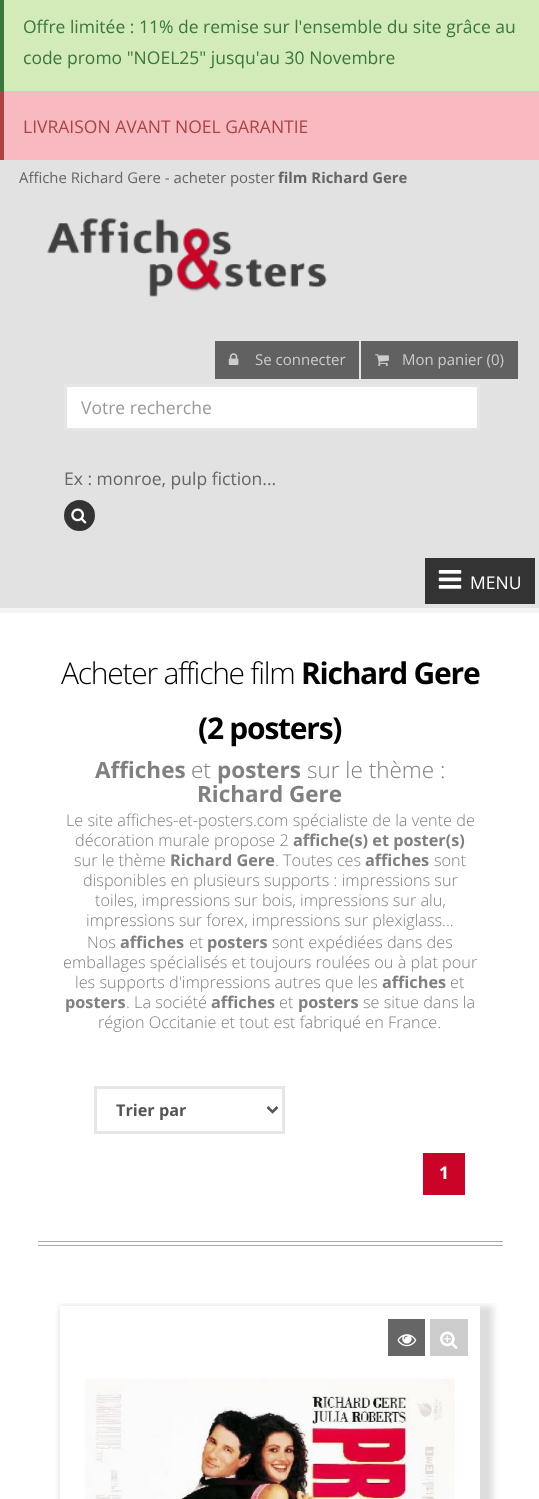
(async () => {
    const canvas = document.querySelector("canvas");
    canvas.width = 539;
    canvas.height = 1499;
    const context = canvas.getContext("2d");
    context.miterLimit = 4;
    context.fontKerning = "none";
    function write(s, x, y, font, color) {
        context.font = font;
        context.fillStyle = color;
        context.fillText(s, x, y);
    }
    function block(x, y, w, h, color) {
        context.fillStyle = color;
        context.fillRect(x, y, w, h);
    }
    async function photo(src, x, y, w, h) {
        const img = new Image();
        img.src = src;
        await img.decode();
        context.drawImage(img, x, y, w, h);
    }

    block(0, 0, 539, 1499, "rgb(210, 235, 184)");
    block(0, 0, 4, 91, "rgb(60, 118, 61)");
    write("Offre limitée : 11% de remise sur l'ensemble du site grâce au", 23, 33, "17.5px Open Sans", "rgb(60, 118, 61)");
    write("code promo \"NOEL25\" jusqu'au 30 Novembre", 23, 64, "17.5px Open Sans", "rgb(60, 118, 61)");
    block(4, 91, 535, 69, "rgb(248, 186, 192)");
    block(0, 91, 4, 69, "rgb(169, 68, 66)");
    write("LIVRAISON AVANT NOEL GARANTIE", 23, 133, "17.5px Open Sans", "rgb(169, 68, 66)");
    block(0, 160, 539, 448, "rgb(226, 226, 226)");
    write("Affiche Richard Gere - acheter poster", 19, 183, "14.9px Open Sans", "rgb(102, 102, 102)");
    write("film Richard Gere", 278, 183, "bold 14.9px Open Sans", "rgb(102, 102, 102)");
    await photo("media/1.png", 47, 218, 280, 79);
    block(215, 341, 144, 38, "rgb(97, 97, 97)");
    await photo("media/2.png", 228, 353, 11, 12);
    write("Se connecter", 255, 365, "15px Open Sans", "rgb(204, 204, 204)");
    block(361, 341, 157, 38, "rgb(97, 97, 97)");
    await photo("media/3.png", 375, 354, 14, 12);
    write("Mon panier (0)", 402, 365, "15px Open Sans", "rgb(204, 204, 204)");
    context.fillStyle = "rgb(255, 255, 255)";
    context.beginPath();
    context.rect(65.5, 385.5, 413, 44);
    context.fill();
    context.strokeStyle = "rgb(230, 230, 230)";
    context.lineWidth = 3;
    context.stroke();
    write("Votre recherche", 81, 414, "17.5px Open Sans", "rgb(153, 153, 153)");
    write("Ex : monroe, pulp fiction...", 64, 485, "17.5px Open Sans", "rgb(102, 102, 102)");
    context.fillStyle = "rgb(51, 51, 51)";
    context.beginPath();
    context.arc(79.5, 515.5, 15.5, 0, Math.PI * 2);
    context.fill();
    await photo("media/4.png", 71, 508, 16, 16);
    block(0, 608, 539, 5, "rgb(245, 245, 245)");
    block(425, 558, 110, 46, "rgb(51, 51, 51)");
    await photo("media/5.png", 438, 570, 24, 19);
    write("MENU", 470, 589, "17.5px Open Sans", "rgb(255, 255, 255)");
    block(0, 613, 539, 886, "rgb(255, 255, 255)");
    context.letterSpacing = "-1.25px";
    write("Acheter affiche film", 61, 684, "300 30px Open Sans", "rgb(0, 0, 0)");
    write("Richard Gere", 301, 684, "bold 30px Open Sans", "rgb(0, 0, 0)");
    write("(2 posters)", 198, 739, "bold 30px Open Sans", "rgb(0, 0, 0)");
    context.letterSpacing = "0px";
    write("Affiches", 95, 778, "bold 22.5px Open Sans", "rgb(128, 128, 128)");
    write("et", 191, 778, "300 22.5px Open Sans", "rgb(128, 128, 128)");
    write("posters", 217, 778, "bold 22.5px Open Sans", "rgb(128, 128, 128)");
    write("sur le thème :", 307, 778, "300 22.5px Open Sans", "rgb(128, 128, 128)");
    write("Richard Gere", 197, 802, "bold 22.5px Open Sans", "rgb(128, 128, 128)");
    write("Le site affiches-et-posters.com spécialiste de la vente de", 66, 826, "300 16.25px Open Sans", "rgb(128, 128, 128)");
    write("décoration murale propose 2", 75, 846, "300 16.25px Open Sans", "rgb(128, 128, 128)");
    write("affiche(s) et poster(s)", 293, 846, "bold 16.25px Open Sans", "rgb(128, 128, 128)");
    write("sur le thème", 74, 866, "300 16.25px Open Sans", "rgb(128, 128, 128)");
    write("Richard Gere", 170, 866, "bold 16.25px Open Sans", "rgb(128, 128, 128)");
    write(". Toutes ces", 275, 866, "300 16.25px Open Sans", "rgb(128, 128, 128)");
    write("affiches", 365, 866, "bold 16.25px Open Sans", "rgb(128, 128, 128)");
    write("sont", 434, 866, "300 16.25px Open Sans", "rgb(128, 128, 128)");
    write("disponibles en plusieurs supports : impressions sur", 83, 886, "300 16.25px Open Sans", "rgb(128, 128, 128)");
    write("toiles, impressions sur bois, impressions sur alu,", 95, 906, "300 16.25px Open Sans", "rgb(128, 128, 128)");
    write("impressions sur forex, impressions sur plexiglass...", 86, 926, "300 16.25px Open Sans", "rgb(128, 128, 128)");
    write("Nos", 87, 948, "300 16.25px Open Sans", "rgb(128, 128, 128)");
    write("affiches", 120, 948, "bold 16.25px Open Sans", "rgb(128, 128, 128)");
    write("et", 189, 948, "300 16.25px Open Sans", "rgb(128, 128, 128)");
    write("posters", 207, 948, "bold 16.25px Open Sans", "rgb(128, 128, 128)");
    write("sont expédiées dans des", 272, 948, "300 16.25px Open Sans", "rgb(128, 128, 128)");
    write("emballages spécialisés et toujours roulées ou à plat pour", 63, 968, "300 16.25px Open Sans", "rgb(128, 128, 128)");
    write("les supports d'impressions autres que les", 75, 988, "300 16.25px Open Sans", "rgb(128, 128, 128)");
    write("affiches", 382, 988, "bold 16.25px Open Sans", "rgb(128, 128, 128)");
    write("et", 450, 988, "300 16.25px Open Sans", "rgb(128, 128, 128)");
    write("posters", 65, 1008, "bold 16.25px Open Sans", "rgb(128, 128, 128)");
    write(". La société", 126, 1008, "300 16.25px Open Sans", "rgb(128, 128, 128)");
    write("affiches", 211, 1008, "bold 16.25px Open Sans", "rgb(128, 128, 128)");
    write("et", 279, 1008, "300 16.25px Open Sans", "rgb(128, 128, 128)");
    write("posters", 298, 1008, "bold 16.25px Open Sans", "rgb(128, 128, 128)");
    write("se situe dans la", 363, 1008, "300 16.25px Open Sans", "rgb(128, 128, 128)");
    write("région Occitanie et tout est fabriqué en France.", 98, 1028, "300 16.25px Open Sans", "rgb(128, 128, 128)");
    context.strokeRect(95.5, 1087.5, 188, 45);
    context.beginPath();
    context.moveTo(267.5, 1107);
    context.lineTo(272.5, 1112);
    context.lineTo(277.5, 1107);
    context.strokeStyle = "rgb(85, 85, 85)";
    context.lineWidth = 2.5;
    context.stroke();
    write("Trier par", 116, 1116, "bold 16.25px Open Sans", "rgb(85, 85, 85)");
    block(423, 1153, 42, 42, "rgb(203, 4, 39)");
    write("1", 439, 1179, "bold 17.5px Open Sans", "rgb(255, 255, 255)");
    block(38, 1241, 465, 1, "rgb(170, 170, 170)");
    block(38, 1245, 465, 1, "rgb(170, 170, 170)");
    context.save();
    context.beginPath();
    context.rect(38, 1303, 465, 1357);
    context.clip();
    context.fillStyle = "rgb(221, 221, 221)";
    context.filter = "blur(3px)";
    context.beginPath();
    context.rect(60, 1306, 433, 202);
    context.fill();
    context.filter = "none";
    context.restore();
    block(60, 1306, 420, 193, "rgb(255, 255, 255)");
    block(388, 1319, 37, 37, "rgb(102, 102, 102)");
    await photo("media/6.png", 397, 1334, 20, 13);
    block(430, 1319, 38, 37, "rgb(204, 204, 204)");
    await photo("media/7.png", 440, 1331, 18, 18);
    await photo("media/8.png", 85, 1378, 370, 121);
})();
